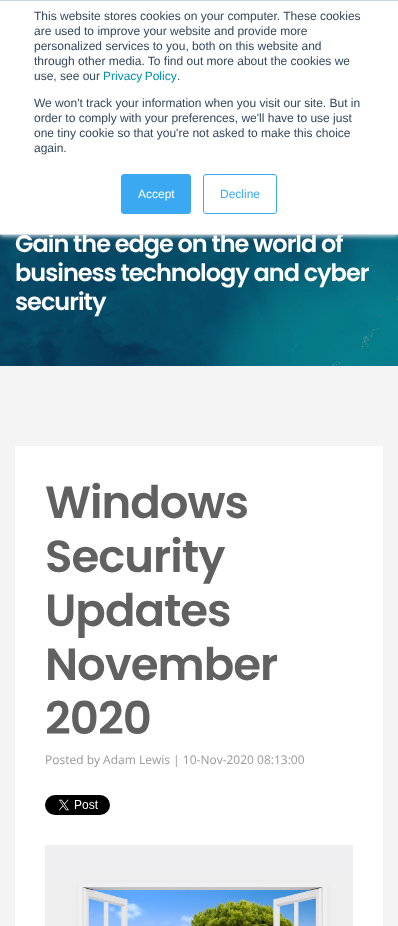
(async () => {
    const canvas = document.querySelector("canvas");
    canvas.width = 398;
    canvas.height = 926;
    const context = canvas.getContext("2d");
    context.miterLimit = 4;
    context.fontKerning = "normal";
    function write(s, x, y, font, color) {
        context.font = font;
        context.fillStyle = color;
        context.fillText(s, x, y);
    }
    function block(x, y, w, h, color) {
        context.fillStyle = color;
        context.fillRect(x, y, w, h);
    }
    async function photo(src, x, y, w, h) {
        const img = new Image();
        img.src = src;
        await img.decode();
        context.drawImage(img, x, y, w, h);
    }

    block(0, 0, 398, 926, "rgb(244, 244, 244)");
    await photo("media/1.png", 0, 235, 398, 131);
    context.fillStyle = "rgb(234, 240, 246)";
    context.filter = "blur(2.5px)";
    context.beginPath();
    context.rect(0, 1, 398, 235);
    context.fill();
    context.filter = "none";
    block(0, 1, 398, 233, "rgb(255, 255, 255)");
    block(0, 0, 398, 1, "rgb(203, 214, 226)");
    context.letterSpacing = "-1px";
    write("Gain the edge on the world of", 15, 252, "600 24px Poppins", "rgb(255, 255, 255)");
    block(0, 234, 398, 1, "rgb(203, 214, 226)");
    context.letterSpacing = "0px";
    write("This website stores cookies on your computer. These cookies", 34, 20, "12px Liberation Sans", "rgb(51, 71, 91)");
    write("are used to improve your website and provide more", 34, 35, "12px Liberation Sans", "rgb(51, 71, 91)");
    write("personalized services to you, both on this website and", 34, 50, "12px Liberation Sans", "rgb(51, 71, 91)");
    write("through other media. To find out more about the cookies we", 34, 65, "12px Liberation Sans", "rgb(51, 71, 91)");
    write("use, see our", 34, 80, "12px Liberation Sans", "rgb(51, 71, 91)");
    context.wordSpacing = "-1px";
    write("Privacy Policy", 103, 80, "12px Liberation Sans", "rgb(0, 145, 174)");
    context.wordSpacing = "0px";
    write(".", 177, 80, "12px Liberation Sans", "rgb(51, 71, 91)");
    write("We won't track your information when you visit our site. But in", 34, 107, "12px Liberation Sans", "rgb(51, 71, 91)");
    write("order to comply with your preferences, we'll have to use just", 34, 122, "12px Liberation Sans", "rgb(51, 71, 91)");
    write("one tiny cookie so that you're not asked to make this choice", 34, 137, "12px Liberation Sans", "rgb(51, 71, 91)");
    write("again.", 34, 152, "12px Liberation Sans", "rgb(51, 71, 91)");
    context.fillStyle = "rgb(58, 169, 242)";
    context.beginPath();
    context.roundRect(121.5, 174.5, 69, 39, 2.5);
    context.fill();
    context.strokeStyle = "rgb(58, 169, 242)";
    context.stroke();
    write("Accept", 138, 198, "12px Liberation Sans", "rgb(255, 255, 255)");
    context.beginPath();
    context.roundRect(203.5, 174.5, 73, 39, 2.5);
    context.stroke();
    write("Decline", 220, 198, "12px Liberation Sans", "rgb(58, 169, 242)");
    context.letterSpacing = "-1px";
    write("business technology and cyber", 15, 281, "600 24px Poppins", "rgb(255, 255, 255)");
    write("security", 15, 310, "600 24px Poppins", "rgb(255, 255, 255)");
    block(15, 446, 368, 480, "rgb(255, 255, 255)");
    write("Windows", 45, 518, "600 45px Poppins", "rgb(97, 97, 97)");
    write("Security", 45, 572, "600 45px Poppins", "rgb(97, 97, 97)");
    write("Updates", 45, 626, "600 45px Poppins", "rgb(97, 97, 97)");
    write("November", 45, 680, "600 45px Poppins", "rgb(97, 97, 97)");
    write("2020", 45, 734, "600 45px Poppins", "rgb(97, 97, 97)");
    context.letterSpacing = "0px";
    write("Posted by Adam Lewis | 10-Nov-2020 08:13:00", 45, 764, "12px Open Sans", "rgb(153, 153, 153)");
    await photo("media/2.png", 45, 795, 65, 20);
    await photo("media/3.png", 45, 845, 308, 81);
})();
